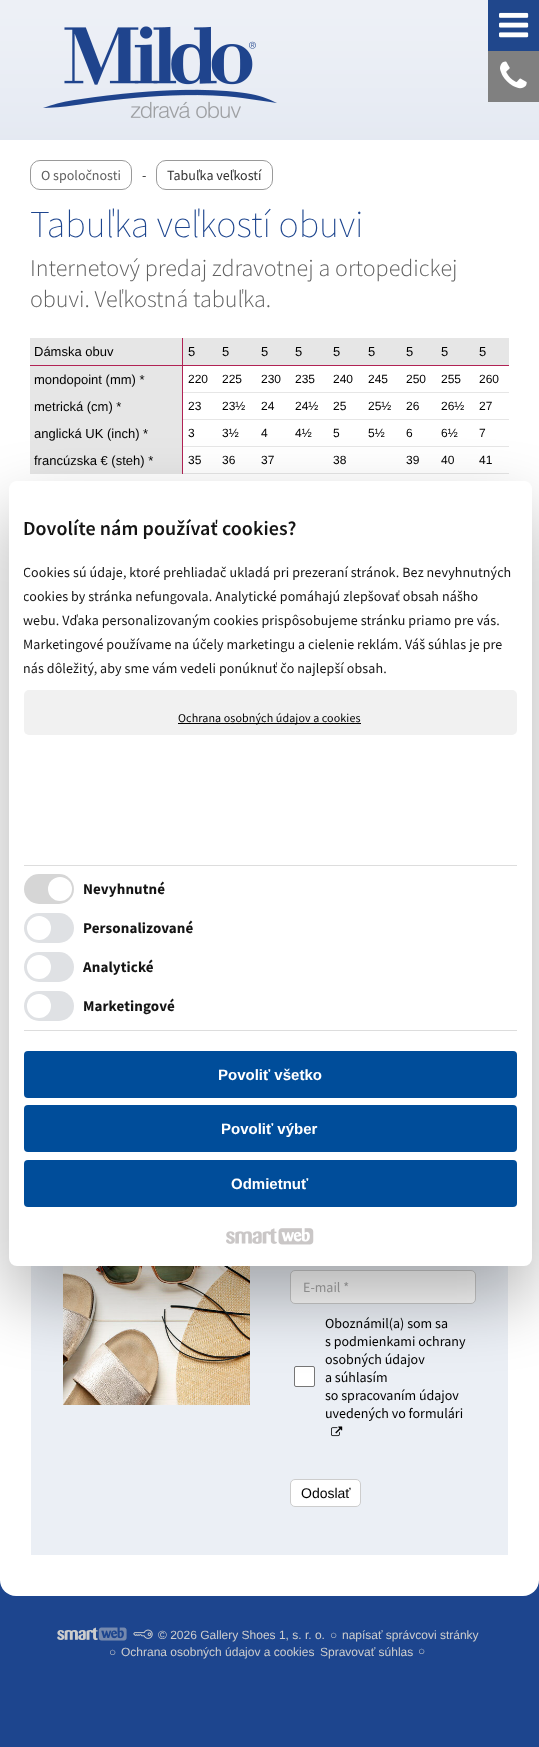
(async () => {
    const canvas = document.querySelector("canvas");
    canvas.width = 539;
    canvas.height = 1747;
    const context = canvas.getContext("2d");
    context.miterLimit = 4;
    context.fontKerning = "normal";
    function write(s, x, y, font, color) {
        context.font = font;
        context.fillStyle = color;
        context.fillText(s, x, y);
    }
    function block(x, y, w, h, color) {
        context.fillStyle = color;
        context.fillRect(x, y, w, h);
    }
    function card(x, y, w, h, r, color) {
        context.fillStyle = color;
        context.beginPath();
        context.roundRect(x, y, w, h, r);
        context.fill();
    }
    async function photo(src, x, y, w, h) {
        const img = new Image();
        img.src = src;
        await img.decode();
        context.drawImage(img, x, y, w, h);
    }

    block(0, 0, 539, 1747, "rgb(29, 69, 142)");
    await photo("media/1.png", 0, 0, 539, 140);
    block(0, 0, 539, 140, "rgba(255, 255, 255, 0.8)");
    block(488, 0, 51, 51, "rgb(32, 71, 140)");
    await photo("media/2.png", 499, 12, 30, 26);
    block(488, 51, 51, 51, "rgb(128, 128, 128)");
    await photo("media/3.png", 500, 61, 27, 28);
    await photo("media/4.png", 43, 26, 234, 93);
    context.fillStyle = "rgb(255, 255, 255)";
    context.beginPath();
    context.roundRect(0, 140, 539, 1456, [0, 0, 16, 16]);
    context.fill();
    context.beginPath();
    context.roundRect(30.5, 160.5, 101, 29, 9.5);
    context.strokeStyle = "rgb(154, 154, 154)";
    context.stroke();
    write("O spoločnosti", 41, 180, "14px Source Sans Pro", "rgb(97, 97, 97)");
    write("-", 142, 180, "14px Source Sans Pro", "rgb(51, 51, 51)");
    context.beginPath();
    context.roundRect(156.5, 160.5, 116, 29, 9.5);
    context.stroke();
    write("Tabuľka veľkostí", 167, 180, "14px Source Sans Pro", "rgb(51, 51, 51)");
    write("Tabuľka veľkostí obuvi", 30, 237, "200 38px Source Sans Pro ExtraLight", "rgb(29, 69, 142)");
    write("Internetový predaj zdravotnej a ortopedickej", 30, 276, "300 24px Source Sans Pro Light", "rgb(97, 97, 97)");
    write("obuvi. Veľkostná tabuľka.", 30, 307, "300 24px Source Sans Pro Light", "rgb(97, 97, 97)");
    block(30, 338, 152, 27, "rgb(230, 230, 230)");
    block(182, 338, 1, 136, "rgb(177, 34, 84)");
    block(30, 365, 479, 1, "rgb(177, 34, 84)");
    write("Dámska obuv", 34, 356, "13px Liberation Sans", "rgb(0, 0, 0)");
    block(183, 338, 326, 27, "rgb(230, 230, 230)");
    write("5", 188, 356, "13px Liberation Sans", "rgb(0, 0, 0)");
    write("5", 222, 356, "13px Liberation Sans", "rgb(0, 0, 0)");
    write("5", 261, 356, "13px Liberation Sans", "rgb(0, 0, 0)");
    write("5", 295, 356, "13px Liberation Sans", "rgb(0, 0, 0)");
    write("5", 333, 356, "13px Liberation Sans", "rgb(0, 0, 0)");
    write("5", 368, 356, "13px Liberation Sans", "rgb(0, 0, 0)");
    write("5", 406, 356, "13px Liberation Sans", "rgb(0, 0, 0)");
    write("5", 441, 356, "13px Liberation Sans", "rgb(0, 0, 0)");
    write("5", 479, 356, "13px Liberation Sans", "rgb(0, 0, 0)");
    block(30, 366, 152, 108, "rgb(230, 230, 230)");
    write("mondopoint (mm) *", 34, 384, "13px Liberation Sans", "rgb(0, 0, 0)");
    block(183, 392, 326, 1, "rgb(230, 230, 230)");
    write("220", 188, 383, "12px Liberation Sans", "rgb(0, 0, 0)");
    write("225", 222, 383, "12px Liberation Sans", "rgb(0, 0, 0)");
    write("230", 261, 383, "12px Liberation Sans", "rgb(0, 0, 0)");
    write("235", 295, 383, "12px Liberation Sans", "rgb(0, 0, 0)");
    write("240", 333, 383, "12px Liberation Sans", "rgb(0, 0, 0)");
    write("245", 368, 383, "12px Liberation Sans", "rgb(0, 0, 0)");
    write("250", 406, 383, "12px Liberation Sans", "rgb(0, 0, 0)");
    write("255", 441, 383, "12px Liberation Sans", "rgb(0, 0, 0)");
    write("260", 479, 383, "12px Liberation Sans", "rgb(0, 0, 0)");
    write("metrická (cm) *", 34, 411, "13px Liberation Sans", "rgb(0, 0, 0)");
    block(183, 419, 326, 1, "rgb(230, 230, 230)");
    write("23", 188, 410, "12px Liberation Sans", "rgb(0, 0, 0)");
    write("23½", 222, 410, "12px Liberation Sans", "rgb(0, 0, 0)");
    write("24", 261, 410, "12px Liberation Sans", "rgb(0, 0, 0)");
    write("24½", 295, 410, "12px Liberation Sans", "rgb(0, 0, 0)");
    write("25", 333, 410, "12px Liberation Sans", "rgb(0, 0, 0)");
    write("25½", 368, 410, "12px Liberation Sans", "rgb(0, 0, 0)");
    write("26", 406, 410, "12px Liberation Sans", "rgb(0, 0, 0)");
    write("26½", 441, 410, "12px Liberation Sans", "rgb(0, 0, 0)");
    write("27", 479, 410, "12px Liberation Sans", "rgb(0, 0, 0)");
    write("anglická UK (inch) *", 34, 438, "13px Liberation Sans", "rgb(0, 0, 0)");
    block(183, 446, 326, 1, "rgb(230, 230, 230)");
    write("3", 188, 437, "12px Liberation Sans", "rgb(0, 0, 0)");
    write("3½", 222, 437, "12px Liberation Sans", "rgb(0, 0, 0)");
    write("4", 261, 437, "12px Liberation Sans", "rgb(0, 0, 0)");
    write("4½", 295, 437, "12px Liberation Sans", "rgb(0, 0, 0)");
    write("5", 333, 437, "12px Liberation Sans", "rgb(0, 0, 0)");
    write("5½", 368, 437, "12px Liberation Sans", "rgb(0, 0, 0)");
    write("6", 406, 437, "12px Liberation Sans", "rgb(0, 0, 0)");
    write("6½", 441, 437, "12px Liberation Sans", "rgb(0, 0, 0)");
    write("7", 479, 437, "12px Liberation Sans", "rgb(0, 0, 0)");
    write("francúzska € (steh) *", 34, 465, "13px Liberation Sans", "rgb(0, 0, 0)");
    block(183, 473, 326, 1, "rgb(230, 230, 230)");
    write("35", 188, 464, "12px Liberation Sans", "rgb(0, 0, 0)");
    write("36", 222, 464, "12px Liberation Sans", "rgb(0, 0, 0)");
    write("37", 261, 464, "12px Liberation Sans", "rgb(0, 0, 0)");
    write("38", 333, 464, "12px Liberation Sans", "rgb(0, 0, 0)");
    write("39", 406, 464, "12px Liberation Sans", "rgb(0, 0, 0)");
    write("40", 441, 464, "12px Liberation Sans", "rgb(0, 0, 0)");
    write("41", 479, 464, "12px Liberation Sans", "rgb(0, 0, 0)");
    block(31, 1266, 477, 289, "rgb(235, 239, 245)");
    await photo("media/5.png", 63, 1266, 187, 139);
    context.fillStyle = "rgb(255, 255, 255)";
    context.beginPath();
    context.roundRect(290.5, 1270.5, 185, 33, 4.5);
    context.fill();
    context.strokeStyle = "rgb(205, 205, 205)";
    context.stroke();
    write("E-mail *", 303, 1292, "14px Source Sans Pro", "rgb(170, 170, 170)");
    context.fillStyle = "rgb(255, 255, 255)";
    context.beginPath();
    context.roundRect(294.5, 1366.5, 20, 20, 1.5);
    context.fill();
    context.strokeStyle = "rgb(118, 118, 118)";
    context.stroke();
    write("Oboznámil(a) som sa", 325, 1328, "14px Source Sans Pro", "rgb(0, 0, 0)");
    write("s podmienkami ochrany", 325, 1346, "14px Source Sans Pro", "rgb(0, 0, 0)");
    write("osobných údajov", 325, 1364, "14px Source Sans Pro", "rgb(0, 0, 0)");
    write("a súhlasím", 325, 1382, "14px Source Sans Pro", "rgb(0, 0, 0)");
    write("so spracovaním údajov", 325, 1400, "14px Source Sans Pro", "rgb(0, 0, 0)");
    write("uvedených vo formulári", 325, 1418, "14px Source Sans Pro", "rgb(0, 0, 0)");
    await photo("media/6.png", 331, 1426, 12, 11);
    context.fillStyle = "rgb(255, 255, 255)";
    context.beginPath();
    context.roundRect(290.5, 1479.5, 70, 27, 4.5);
    context.fill();
    context.strokeStyle = "rgb(205, 205, 205)";
    context.stroke();
    write("Odoslať", 301, 1498, "14px Liberation Sans", "rgb(0, 0, 0)");
    context.fillStyle = "rgba(0, 0, 0, 0.3)";
    context.filter = "blur(34px)";
    context.beginPath();
    context.roundRect(9, 513, 523, 785, 8);
    context.fill();
    context.filter = "none";
    card(9, 481, 523, 785, 8, "rgb(255, 255, 255)");
    context.letterSpacing = "0.1px";
    write("Dovolíte nám používať cookies?", 23, 535, "600 20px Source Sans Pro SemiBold", "rgb(20, 20, 20)");
    context.save();
    context.beginPath();
    context.rect(24, 516, 493, 349);
    context.clip();
    write("Cookies sú údaje, ktoré prehliadač ukladá pri prezeraní stránok. Bez nevyhnutných", 23, 577, "14px Source Sans Pro", "rgb(20, 20, 20)");
    write("cookies by stránka nefungovala. Analytické pomáhajú zlepšovať obsah nášho", 23, 601, "14px Source Sans Pro", "rgb(20, 20, 20)");
    context.restore();
    write("webu. Vďaka personalizovaným cookies prispôsobujeme stránku priamo pre vás.", 23, 625, "14px Source Sans Pro", "rgb(20, 20, 20)");
    write("Marketingové používame na účely marketingu a cielenie reklám. Váš súhlas je pre", 23, 649, "14px Source Sans Pro", "rgb(20, 20, 20)");
    write("nás dôležitý, aby sme vám vedeli ponúknuť čo najlepší obsah.", 23, 673, "14px Source Sans Pro", "rgb(20, 20, 20)");
    card(24, 690, 493, 45, 5, "rgb(241, 241, 241)");
    block(178, 723, 183, 1, "rgb(0, 0, 0)");
    write("Ochrana osobných údajov a cookies", 178, 722, "12px Source Sans Pro", "rgb(0, 0, 0)");
    block(24, 865, 493, 1, "rgb(221, 221, 221)");
    block(24, 1030, 493, 1, "rgb(221, 221, 221)");
    card(24, 874, 50, 30, 15, "rgb(214, 214, 214)");
    context.fillStyle = "rgb(255, 255, 255)";
    context.beginPath();
    context.arc(60, 889, 12, 0, Math.PI * 2);
    context.fill();
    write("Nevyhnutné", 83, 894, "bold 15px Source Sans Pro", "rgb(20, 20, 20)");
    card(24, 913, 50, 30, 15, "rgb(223, 225, 228)");
    context.fillStyle = "rgb(255, 255, 255)";
    context.beginPath();
    context.arc(39, 928, 12, 0, Math.PI * 2);
    context.fill();
    write("Personalizované", 83, 933, "bold 15px Source Sans Pro", "rgb(20, 20, 20)");
    card(24, 952, 50, 30, 15, "rgb(223, 225, 228)");
    context.fillStyle = "rgb(255, 255, 255)";
    context.beginPath();
    context.arc(39, 967, 12, 0, Math.PI * 2);
    context.fill();
    write("Analytické", 83, 972, "bold 15px Source Sans Pro", "rgb(20, 20, 20)");
    card(24, 991, 50, 30, 15, "rgb(223, 225, 228)");
    context.fillStyle = "rgb(255, 255, 255)";
    context.beginPath();
    context.arc(39, 1006, 12, 0, Math.PI * 2);
    context.fill();
    write("Marketingové", 83, 1011, "bold 15px Source Sans Pro", "rgb(20, 20, 20)");
    card(24, 1051, 493, 47, 4, "rgb(0, 77, 154)");
    context.letterSpacing = "0px";
    write("Povoliť všetko", 218, 1080, "bold 15px Liberation Sans", "rgb(255, 255, 255)");
    card(24, 1105, 493, 47, 4, "rgb(0, 77, 154)");
    write("Povoliť výber", 221, 1134, "bold 15px Liberation Sans", "rgb(255, 255, 255)");
    card(24, 1160, 493, 47, 4, "rgb(0, 77, 154)");
    write("Odmietnuť", 231, 1189, "bold 15px Liberation Sans", "rgb(255, 255, 255)");
    await photo("media/7.png", 226, 1228, 51, 16);
    await photo("media/8.png", 278, 1228, 36, 17);
    await photo("media/9.png", 57, 1627, 41, 14);
    await photo("media/10.png", 98, 1627, 29, 14);
    await photo("media/11.png", 133, 1629, 20, 10);
    write("© 2026 Gallery Shoes 1, s. r. o.", 158, 1639, "12px Liberation Sans", "rgb(205, 205, 205)");
    write("○", 330, 1639, "12px Liberation Sans", "rgb(205, 205, 205)");
    write("napísať správcovi stránky", 342, 1639, "12px Liberation Sans", "rgb(205, 205, 205)");
    write("○", 109, 1656, "12px Liberation Sans", "rgb(205, 205, 205)");
    write("Ochrana osobných údajov a cookies", 121, 1656, "12px Liberation Sans", "rgb(205, 205, 205)");
    write("Spravovať súhlas", 320, 1656, "12px Liberation Sans", "rgb(205, 205, 205)");
    write("○", 418, 1655, "12px Liberation Sans", "rgb(205, 205, 205)");
})();
